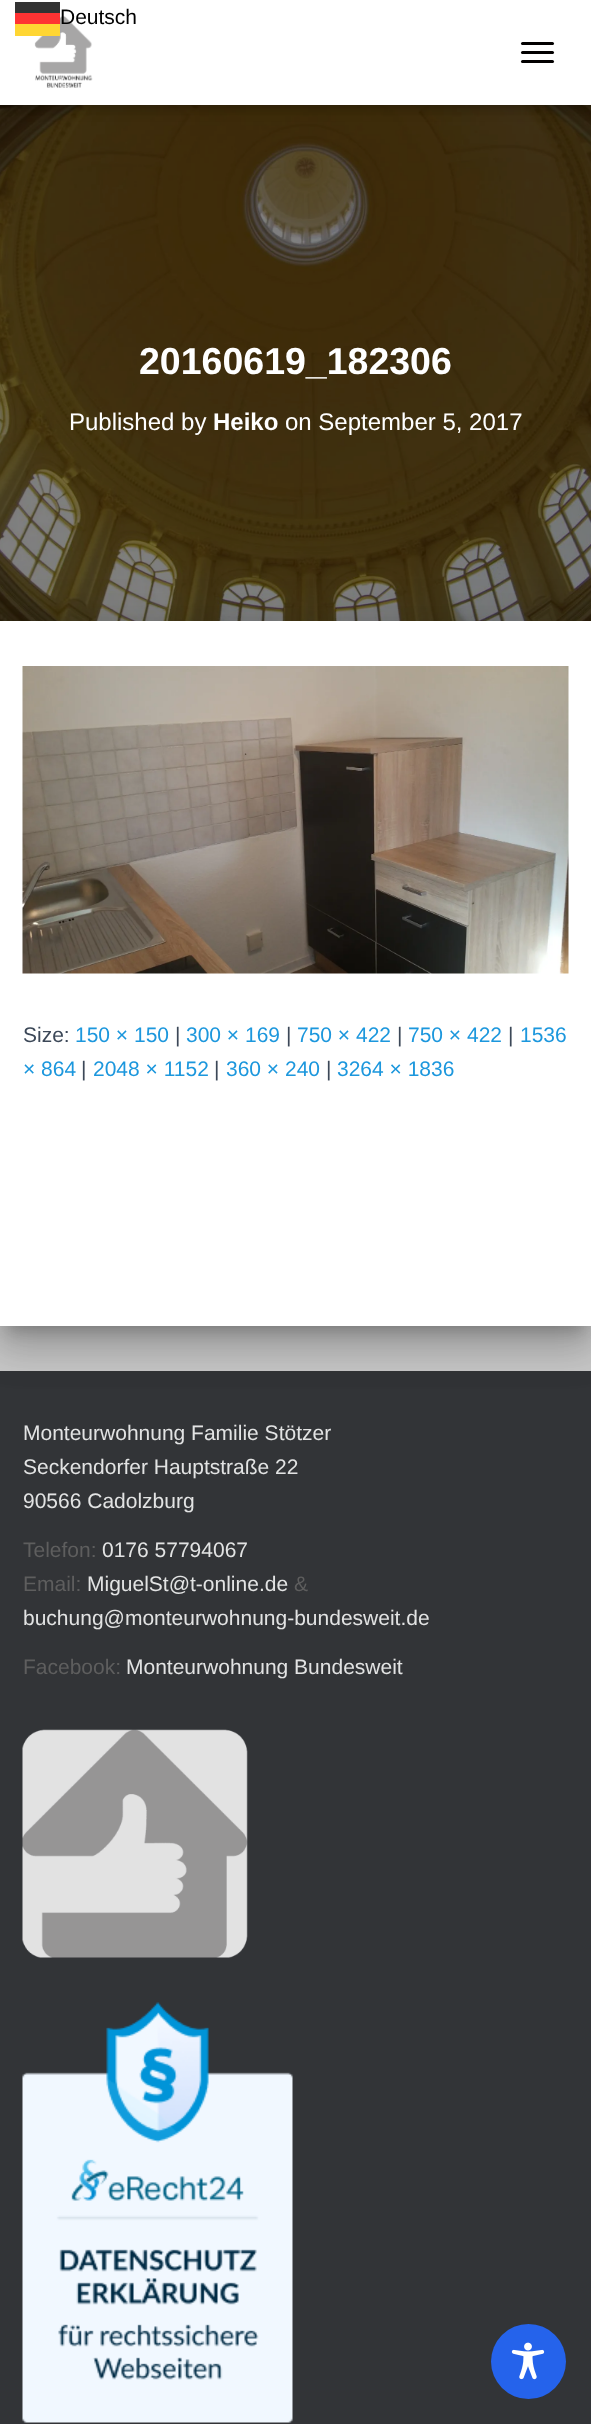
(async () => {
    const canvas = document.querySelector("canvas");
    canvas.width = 591;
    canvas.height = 2424;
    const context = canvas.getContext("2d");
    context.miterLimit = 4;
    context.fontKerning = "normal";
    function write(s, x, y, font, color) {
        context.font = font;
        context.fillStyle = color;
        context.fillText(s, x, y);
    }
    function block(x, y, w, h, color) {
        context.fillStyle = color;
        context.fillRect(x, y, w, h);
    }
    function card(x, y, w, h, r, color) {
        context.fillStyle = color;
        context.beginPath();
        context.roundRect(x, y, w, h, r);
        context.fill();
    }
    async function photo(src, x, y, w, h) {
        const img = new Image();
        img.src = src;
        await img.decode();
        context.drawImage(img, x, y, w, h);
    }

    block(0, 0, 591, 2424, "rgb(201, 201, 201)");
    await photo("media/2.png", 0, 105, 591, 516);
    context.fillStyle = "rgba(0, 0, 0, 0.1)";
    context.filter = "blur(4px)";
    context.beginPath();
    context.rect(3, 9, 585, 99);
    context.fill();
    context.filter = "none";
    context.fillStyle = "rgba(0, 0, 0, 0.12)";
    context.filter = "blur(7.5px)";
    context.beginPath();
    context.rect(0, 2, 591, 105);
    context.fill();
    context.filter = "none";
    context.fillStyle = "rgba(0, 0, 0, 0.42)";
    context.filter = "blur(7.5px)";
    context.beginPath();
    context.rect(9, 11, 573, 87);
    context.fill();
    context.filter = "none";
    block(0, 0, 591, 105, "rgb(255, 255, 255)");
    await photo("media/1.png", 34, 16, 59, 72);
    card(521, 42, 33, 3, 1.5, "rgb(2, 0, 0)");
    card(521, 51, 33, 3, 1.5, "rgb(2, 0, 0)");
    card(521, 60, 33, 3, 1.5, "rgb(2, 0, 0)");
    write("Deutsch", 60, 24, "21px Liberation Sans", "rgb(0, 0, 0)");
    block(15, 24, 45, 12, "rgb(255, 204, 0)");
    block(15, 2, 45, 11, "rgb(0, 0, 1)");
    block(15, 13, 45, 11, "rgb(255, 0, 0)");
    block(15, 2, 45, 34, "rgba(255, 255, 255, 0.2)");
    write("20160619_182306", 139, 374, "bold 37.5px Liberation Sans", "rgb(255, 255, 255)");
    write("Published by", 69, 430, "24px Liberation Sans", "rgb(255, 255, 255)");
    write("Heiko", 213, 430, "bold 24px Liberation Sans", "rgb(255, 255, 255)");
    write("on September 5, 2017", 285, 430, "24px Liberation Sans", "rgb(255, 255, 255)");
    context.fillStyle = "rgba(0, 0, 0, 0.2)";
    context.filter = "blur(7.5px)";
    context.beginPath();
    context.rect(8, 641, 576, 690);
    context.fill();
    context.filter = "none";
    block(0, 1371, 591, 1053, "rgb(50, 52, 55)");
    context.fillStyle = "rgba(0, 0, 0, 0.12)";
    context.filter = "blur(22.5px)";
    context.beginPath();
    context.rect(-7, 623, 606, 720);
    context.fill();
    context.filter = "none";
    context.fillStyle = "rgba(0, 0, 0, 0.14)";
    context.filter = "blur(18px)";
    context.beginPath();
    context.rect(-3, 642, 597, 711);
    context.fill();
    context.filter = "none";
    block(0, 621, 591, 705, "rgb(255, 255, 255)");
    await photo("media/3.png", 22, 666, 547, 308);
    write("Size:", 23, 1042, "21px Liberation Sans", "rgb(60, 72, 88)");
    write("150 × 150", 75, 1042, "21px Liberation Sans", "rgb(28, 151, 221)");
    write("|", 175, 1042, "21px Liberation Sans", "rgb(60, 72, 88)");
    write("300 × 169", 186, 1042, "21px Liberation Sans", "rgb(28, 151, 221)");
    write("|", 286, 1042, "21px Liberation Sans", "rgb(60, 72, 88)");
    write("750 × 422", 297, 1042, "21px Liberation Sans", "rgb(28, 151, 221)");
    write("|", 397, 1042, "21px Liberation Sans", "rgb(60, 72, 88)");
    write("750 × 422", 408, 1042, "21px Liberation Sans", "rgb(28, 151, 221)");
    write("|", 508, 1042, "21px Liberation Sans", "rgb(60, 72, 88)");
    write("1536", 520, 1042, "21px Liberation Sans", "rgb(28, 151, 221)");
    write("× 864", 23, 1076, "21px Liberation Sans", "rgb(28, 151, 221)");
    write("|", 81, 1076, "21px Liberation Sans", "rgb(60, 72, 88)");
    write("2048 × 1152", 93, 1076, "21px Liberation Sans", "rgb(28, 151, 221)");
    write("|", 214, 1076, "21px Liberation Sans", "rgb(60, 72, 88)");
    write("360 × 240", 226, 1076, "21px Liberation Sans", "rgb(28, 151, 221)");
    write("|", 326, 1076, "21px Liberation Sans", "rgb(60, 72, 88)");
    write("3264 × 1836", 337, 1076, "21px Liberation Sans", "rgb(28, 151, 221)");
    write("Monteurwohnung Familie Stötzer", 23, 1440, "21px Liberation Sans", "rgb(226, 227, 227)");
    write("Seckendorfer Hauptstraße 22", 23, 1474, "21px Liberation Sans", "rgb(226, 227, 227)");
    write("90566 Cadolzburg", 23, 1508, "21px Liberation Sans", "rgb(226, 227, 227)");
    write("Telefon:", 23, 1557, "21px Liberation Sans", "rgb(94, 94, 94)");
    write("0176 57794067", 102, 1557, "21px Liberation Sans", "rgb(226, 227, 227)");
    write("Email:", 23, 1591, "21px Liberation Sans", "rgb(94, 94, 94)");
    write("MiguelSt@t-online.de", 87, 1591, "21px Liberation Sans", "rgb(226, 227, 227)");
    write("&", 294, 1591, "21px Liberation Sans", "rgb(94, 94, 94)");
    write("buchung@monteurwohnung-bundesweit.de", 23, 1625, "21px Liberation Sans", "rgb(226, 227, 227)");
    write("Facebook:", 23, 1674, "21px Liberation Sans", "rgb(94, 94, 94)");
    write("Monteurwohnung Bundesweit", 126, 1674, "21px Liberation Sans", "rgb(226, 227, 227)");
    await photo("media/4.png", 22, 1729, 226, 229);
    await photo("media/5.png", 22, 2002, 271, 421);
    context.fillStyle = "rgb(37, 99, 235)";
    context.beginPath();
    context.arc(528.5, 2361.5, 37.5, 0, Math.PI * 2);
    context.fill();
    await photo("media/6.png", 511, 2342, 34, 38);
})();
